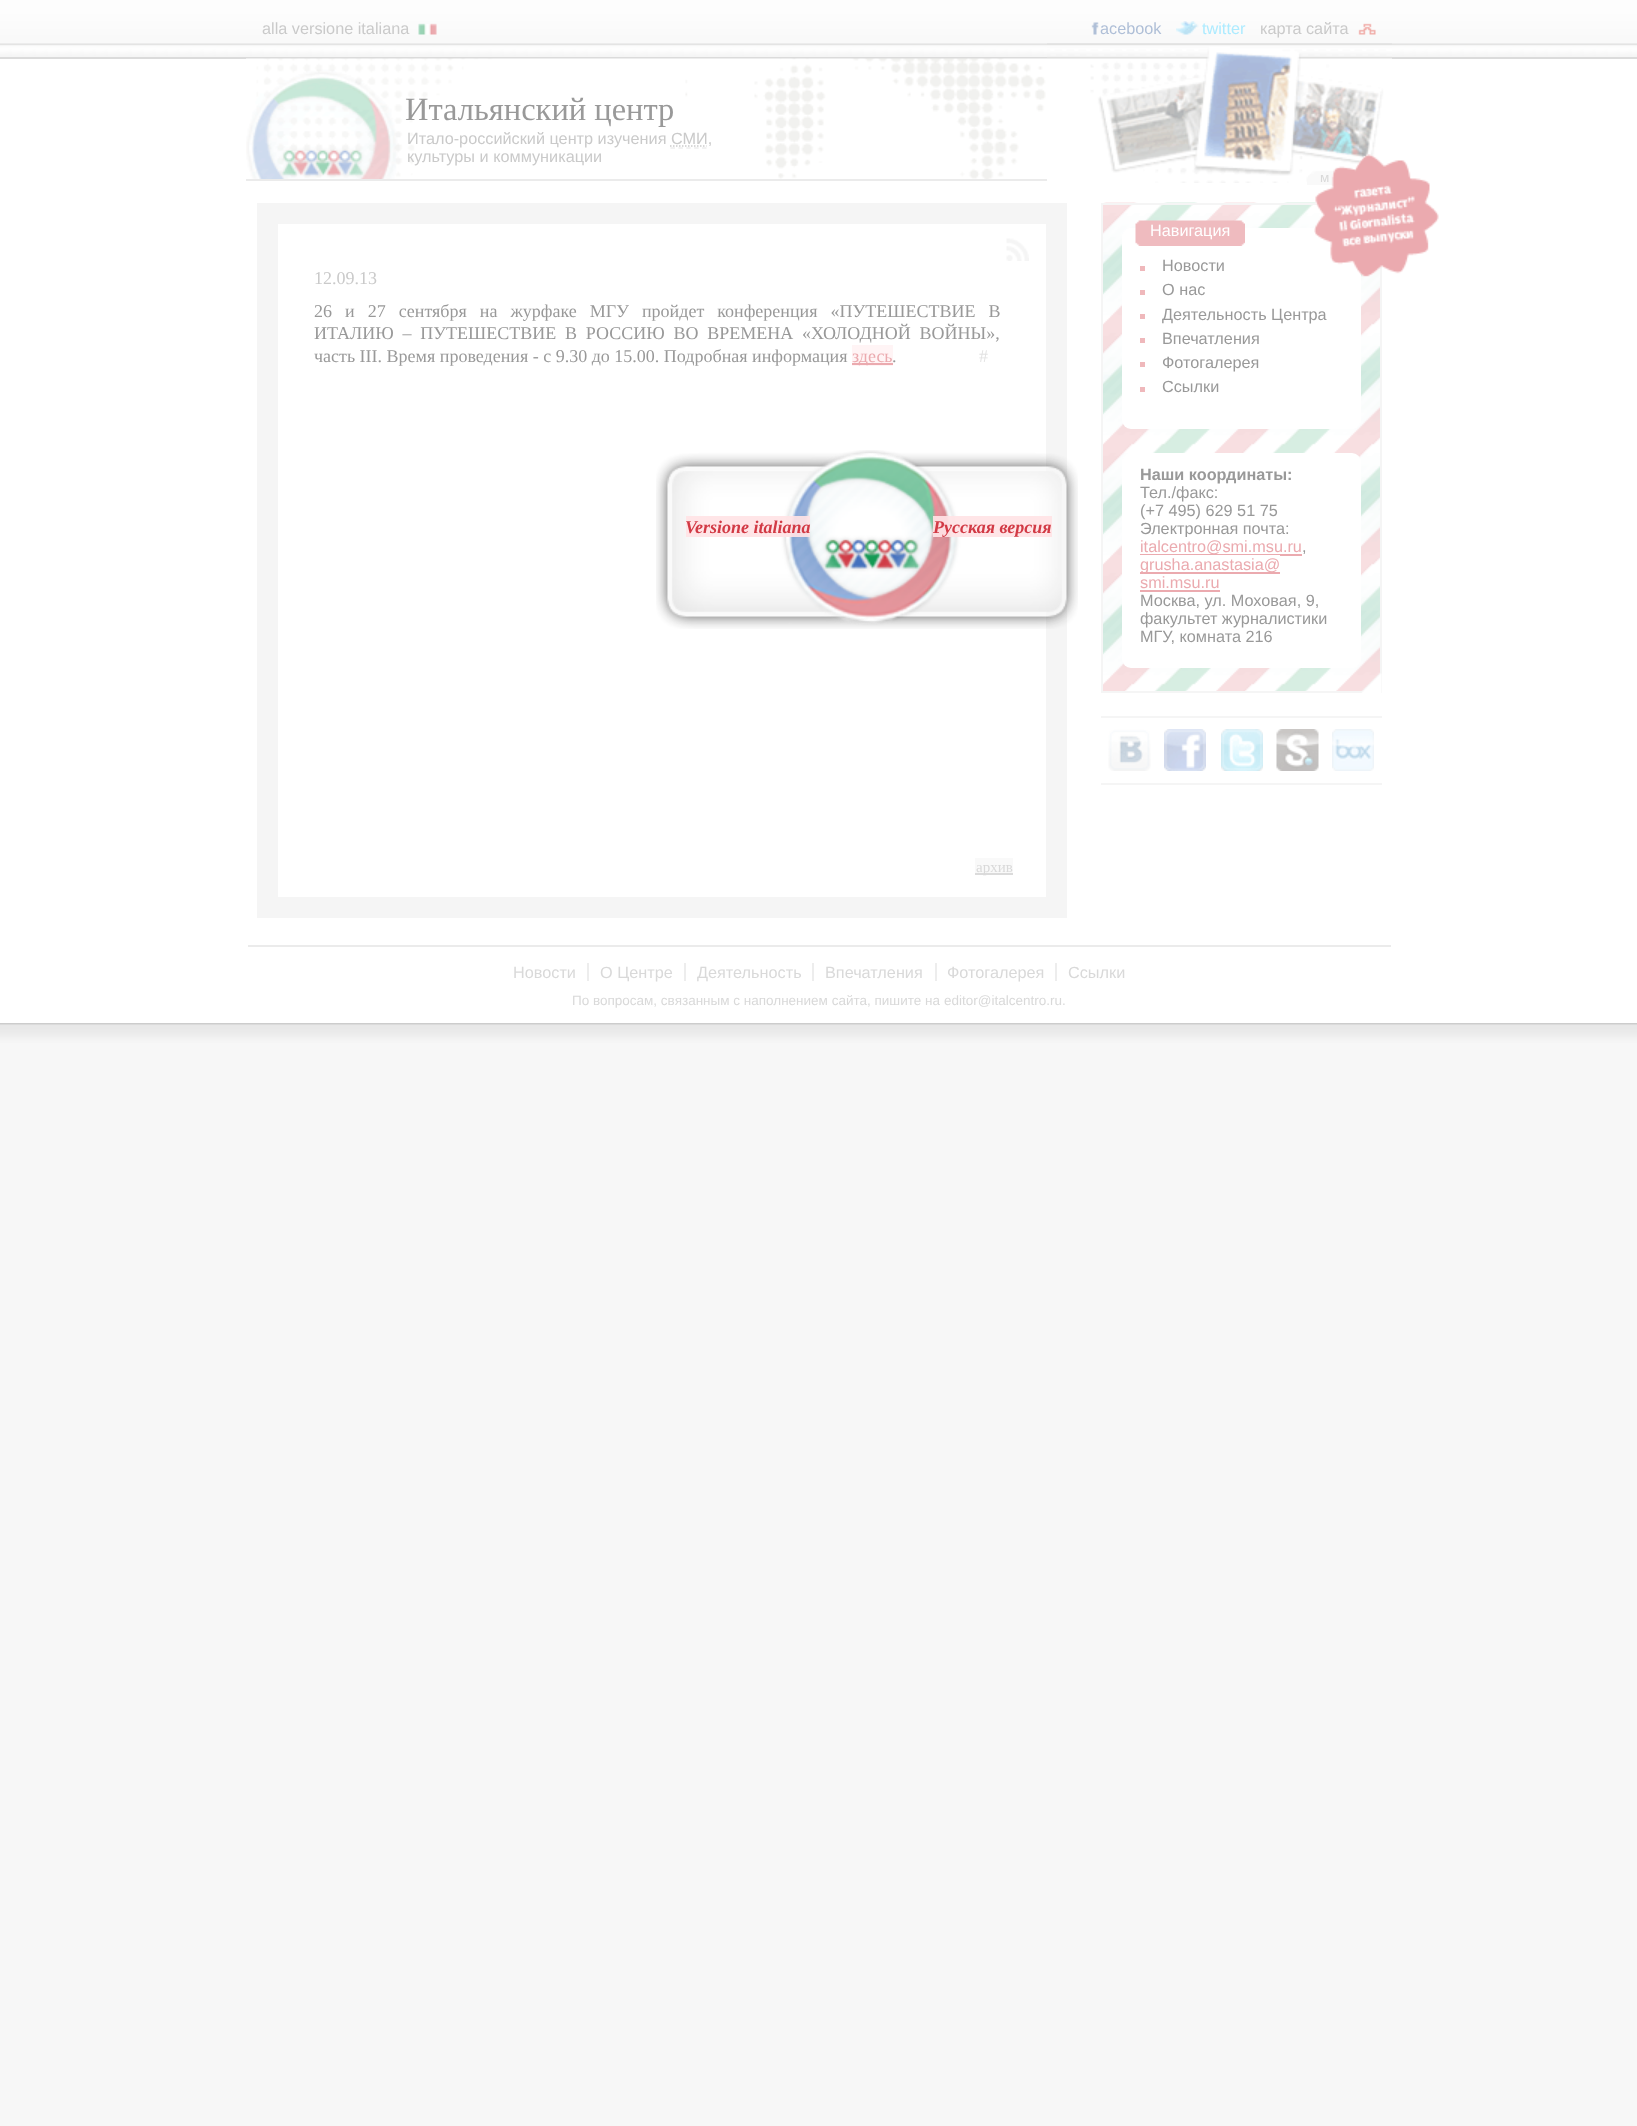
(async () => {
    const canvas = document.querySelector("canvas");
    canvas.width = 1637;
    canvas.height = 2126;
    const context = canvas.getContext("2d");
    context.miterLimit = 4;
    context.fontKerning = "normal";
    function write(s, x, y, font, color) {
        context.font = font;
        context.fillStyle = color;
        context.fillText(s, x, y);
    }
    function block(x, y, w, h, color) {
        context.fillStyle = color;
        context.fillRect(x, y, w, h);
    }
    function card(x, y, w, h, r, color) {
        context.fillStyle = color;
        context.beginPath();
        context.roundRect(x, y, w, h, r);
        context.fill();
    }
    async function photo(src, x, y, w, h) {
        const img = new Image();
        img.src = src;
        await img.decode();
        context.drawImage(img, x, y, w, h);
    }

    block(0, 0, 1637, 2126, "rgb(247, 247, 247)");
    await photo("media/1.png", 0, 0, 1637, 57);
    write("alla versione italiana", 262, 34, "16.25px Liberation Sans", "rgb(202, 202, 202)");
    await photo("media/2.png", 418, 23, 19, 12);
    await photo("media/3.png", 1091, 22, 8, 13);
    write("acebook", 1100, 34, "16.25px Liberation Sans", "rgb(175, 191, 215)");
    await photo("media/4.png", 1176, 21, 23, 14);
    write("twitter", 1202, 34, "16.25px Liberation Sans", "rgb(173, 235, 255)");
    write("карта сайта", 1260, 34, "16.25px Liberation Sans", "rgb(202, 202, 202)");
    await photo("media/5.png", 1358, 23, 18, 12);
    block(0, 59, 1637, 964, "rgb(255, 255, 255)");
    block(0, 57, 1637, 2, "rgb(219, 219, 219)");
    block(0, 1023, 1637, 2, "rgb(204, 204, 204)");
    await photo("media/6.png", 246, 58, 801, 121);
    block(246, 179, 801, 2, "rgb(235, 235, 235)");
    write("Итальянский центр", 405, 120, "32.5px Liberation Serif", "rgb(153, 153, 153)");
    write("Итало-российский центр изучения СМИ,", 407, 144, "16.25px Liberation Sans", "rgb(202, 202, 202)");
    context.beginPath();
    context.moveTo(670, 146);
    context.lineTo(706.5, 146);
    context.strokeStyle = "rgb(204, 204, 204)";
    context.lineWidth = 1.5;
    context.setLineDash([1.5, 1.5]);
    context.stroke();
    context.beginPath();
    context.moveTo(670.5, 148);
    context.lineTo(706.5, 148);
    context.strokeStyle = "rgb(237, 237, 237)";
    context.setLineDash([4.5, 3.38]);
    context.stroke();
    write("культуры и коммуникации", 407, 162, "16.25px Liberation Sans", "rgb(202, 202, 202)");
    await photo("media/7.png", 1047, 43, 345, 140);
    block(1307, 181, 26, 4, "rgb(249, 249, 249)");
    await photo("media/8.png", 1306, 170, 28, 12);
    write("м", 1320, 182, "13.5px Liberation Sans", "rgb(217, 217, 217)");
    context.strokeStyle = "rgb(245, 245, 245)";
    context.lineWidth = 21;
    context.setLineDash([]);
    context.strokeRect(267.5, 213.5, 789, 694);
    await photo("media/9.png", 1006, 238, 23, 23);
    write("12.09.13", 314, 284, "18px Liberation Serif", "rgb(202, 202, 202)");
    context.wordSpacing = "8.5px";
    write("26 и 27 сентября на журфаке МГУ пройдет конференция «ПУТЕШЕСТВИЕ В", 314, 317, "18px Liberation Serif", "rgb(153, 153, 153)");
    context.wordSpacing = "4.25px";
    write("ИТАЛИЮ – ПУТЕШЕСТВИЕ В РОССИЮ ВО ВРЕМЕНА «ХОЛОДНОЙ ВОЙНЫ»,", 314, 339, "18px Liberation Serif", "rgb(153, 153, 153)");
    context.wordSpacing = "0px";
    write("часть III. Время проведения - c 9.30 до 15.00. Подробная информация", 314, 362, "18px Liberation Serif", "rgb(153, 153, 153)");
    block(852, 345, 41, 21, "rgb(255, 244, 245)");
    block(852, 363, 41, 2, "rgb(235, 170, 175)");
    write("здесь", 852, 362, "18px Liberation Serif", "rgb(235, 170, 175)");
    write(".", 892, 362, "18px Liberation Serif", "rgb(153, 153, 153)");
    write("#", 979, 362, "18px Liberation Serif", "rgb(227, 227, 227)");
    block(975, 858, 38, 15, "rgb(249, 249, 249)");
    block(975, 873, 38, 2, "rgb(219, 219, 219)");
    write("архив", 976, 872, "15px Liberation Serif", "rgb(217, 217, 217)");
    await photo("media/10.png", 1101, 202, 279, 489);
    context.lineWidth = 2;
    context.strokeRect(1102, 204, 279, 488);
    card(1122, 228, 239, 201, 9, "rgb(255, 255, 255)");
    await photo("media/11.png", 1135, 220, 110, 26);
    write("Навигация", 1150, 236, "16.25px Liberation Sans", "rgb(255, 255, 255)");
    await photo("media/12.png", 1314, 154, 125, 123);
    block(1140, 266, 5, 5, "rgb(239, 184, 187)");
    write("Новости", 1162, 271, "16.25px Liberation Sans", "rgb(153, 153, 153)");
    block(1140, 290, 5, 5, "rgb(239, 184, 187)");
    write("О нас", 1162, 295, "16.25px Liberation Sans", "rgb(153, 153, 153)");
    block(1140, 314, 5, 5, "rgb(239, 184, 187)");
    write("Деятельность Центра", 1162, 320, "16.25px Liberation Sans", "rgb(153, 153, 153)");
    block(1140, 338, 5, 5, "rgb(239, 184, 187)");
    write("Впечатления", 1162, 344, "16.25px Liberation Sans", "rgb(153, 153, 153)");
    block(1140, 362, 5, 5, "rgb(239, 184, 187)");
    write("Фотогалерея", 1162, 368, "16.25px Liberation Sans", "rgb(153, 153, 153)");
    block(1140, 387, 5, 5, "rgb(239, 184, 187)");
    write("Ссылки", 1162, 392, "16.25px Liberation Sans", "rgb(153, 153, 153)");
    card(1122, 453, 239, 215, 9, "rgb(255, 255, 255)");
    write("Наши координаты:", 1140, 480, "bold 16.25px Liberation Sans", "rgb(153, 153, 153)");
    write("Тел./факс:", 1140, 498, "16.25px Liberation Sans", "rgb(153, 153, 153)");
    write("(+7 495) 629 51 75", 1140, 516, "16.25px Liberation Sans", "rgb(153, 153, 153)");
    write("Электронная почта:", 1140, 534, "16.25px Liberation Sans", "rgb(153, 153, 153)");
    block(1140, 554, 162, 2, "rgb(235, 170, 175)");
    write("italcentro@smi.msu.ru", 1140, 552, "16.25px Liberation Sans", "rgb(235, 170, 175)");
    block(1185, 537, 2, 1, "rgb(255, 255, 255)");
    write(",", 1302, 552, "16.25px Liberation Sans", "rgb(153, 153, 153)");
    block(1140, 572, 140, 2, "rgb(235, 170, 175)");
    write("grusha.anastasia@", 1140, 570, "16.25px Liberation Sans", "rgb(235, 170, 175)");
    block(1140, 555, 140, 1, "rgb(255, 255, 255)");
    write("smi.msu.ru", 1140, 588, "16.25px Liberation Sans", "rgb(235, 170, 175)");
    block(1140, 590, 80, 2, "rgb(235, 170, 175)");
    write("Москва, ул. Моховая, 9,", 1140, 606, "16.25px Liberation Sans", "rgb(153, 153, 153)");
    write("факультет журналистики", 1140, 624, "16.25px Liberation Sans", "rgb(153, 153, 153)");
    write("МГУ, комната 216", 1140, 642, "16.25px Liberation Sans", "rgb(153, 153, 153)");
    await photo("media/13.png", 1361, 672, 21, 21);
    block(1101, 716, 281, 2, "rgb(245, 245, 245)");
    block(1101, 783, 281, 2, "rgb(245, 245, 245)");
    await photo("media/14.png", 1108, 729, 43, 42);
    await photo("media/15.png", 1164, 729, 42, 42);
    await photo("media/16.png", 1221, 729, 42, 42);
    await photo("media/17.png", 1276, 729, 43, 42);
    await photo("media/18.png", 1332, 729, 42, 42);
    block(248, 945, 1143, 2, "rgb(235, 235, 235)");
    write("Новости", 513, 978, "16.25px Liberation Sans", "rgb(217, 217, 217)");
    write("О Центре", 600, 978, "16.25px Liberation Sans", "rgb(217, 217, 217)");
    block(587, 963, 2, 18, "rgb(237, 237, 237)");
    write("Деятельность", 697, 978, "16.25px Liberation Sans", "rgb(217, 217, 217)");
    block(684, 963, 2, 18, "rgb(237, 237, 237)");
    write("Впечатления", 825, 978, "16.25px Liberation Sans", "rgb(217, 217, 217)");
    block(812, 963, 2, 18, "rgb(237, 237, 237)");
    write("Фотогалерея", 947, 978, "16.25px Liberation Sans", "rgb(217, 217, 217)");
    block(935, 963, 2, 18, "rgb(237, 237, 237)");
    write("Ссылки", 1068, 978, "16.25px Liberation Sans", "rgb(217, 217, 217)");
    block(1055, 963, 2, 18, "rgb(237, 237, 237)");
    write("По вопросам, связанным с наполнением сайта, пишите на", 572, 1005, "13.5px Liberation Sans", "rgb(217, 217, 217)");
    write("editor@italcentro.ru", 944, 1005, "13.5px Liberation Sans", "rgb(217, 217, 217)");
    write(".", 1062, 1005, "13.5px Liberation Sans", "rgb(217, 217, 217)");
    await photo("media/19.png", 656, 450, 422, 179);
    block(686, 516, 124, 21, "rgba(255, 227, 229, 0.92)");
    write("Versione italiana", 685, 533, "italic bold 18px Liberation Serif", "rgb(210, 58, 69)");
    block(933, 516, 119, 21, "rgba(255, 227, 229, 0.92)");
    write("Русская версия", 933, 533, "italic bold 18px Liberation Serif", "rgb(210, 58, 69)");
    await photo("media/20.png", 0, 1024, 1637, 19);
})();
